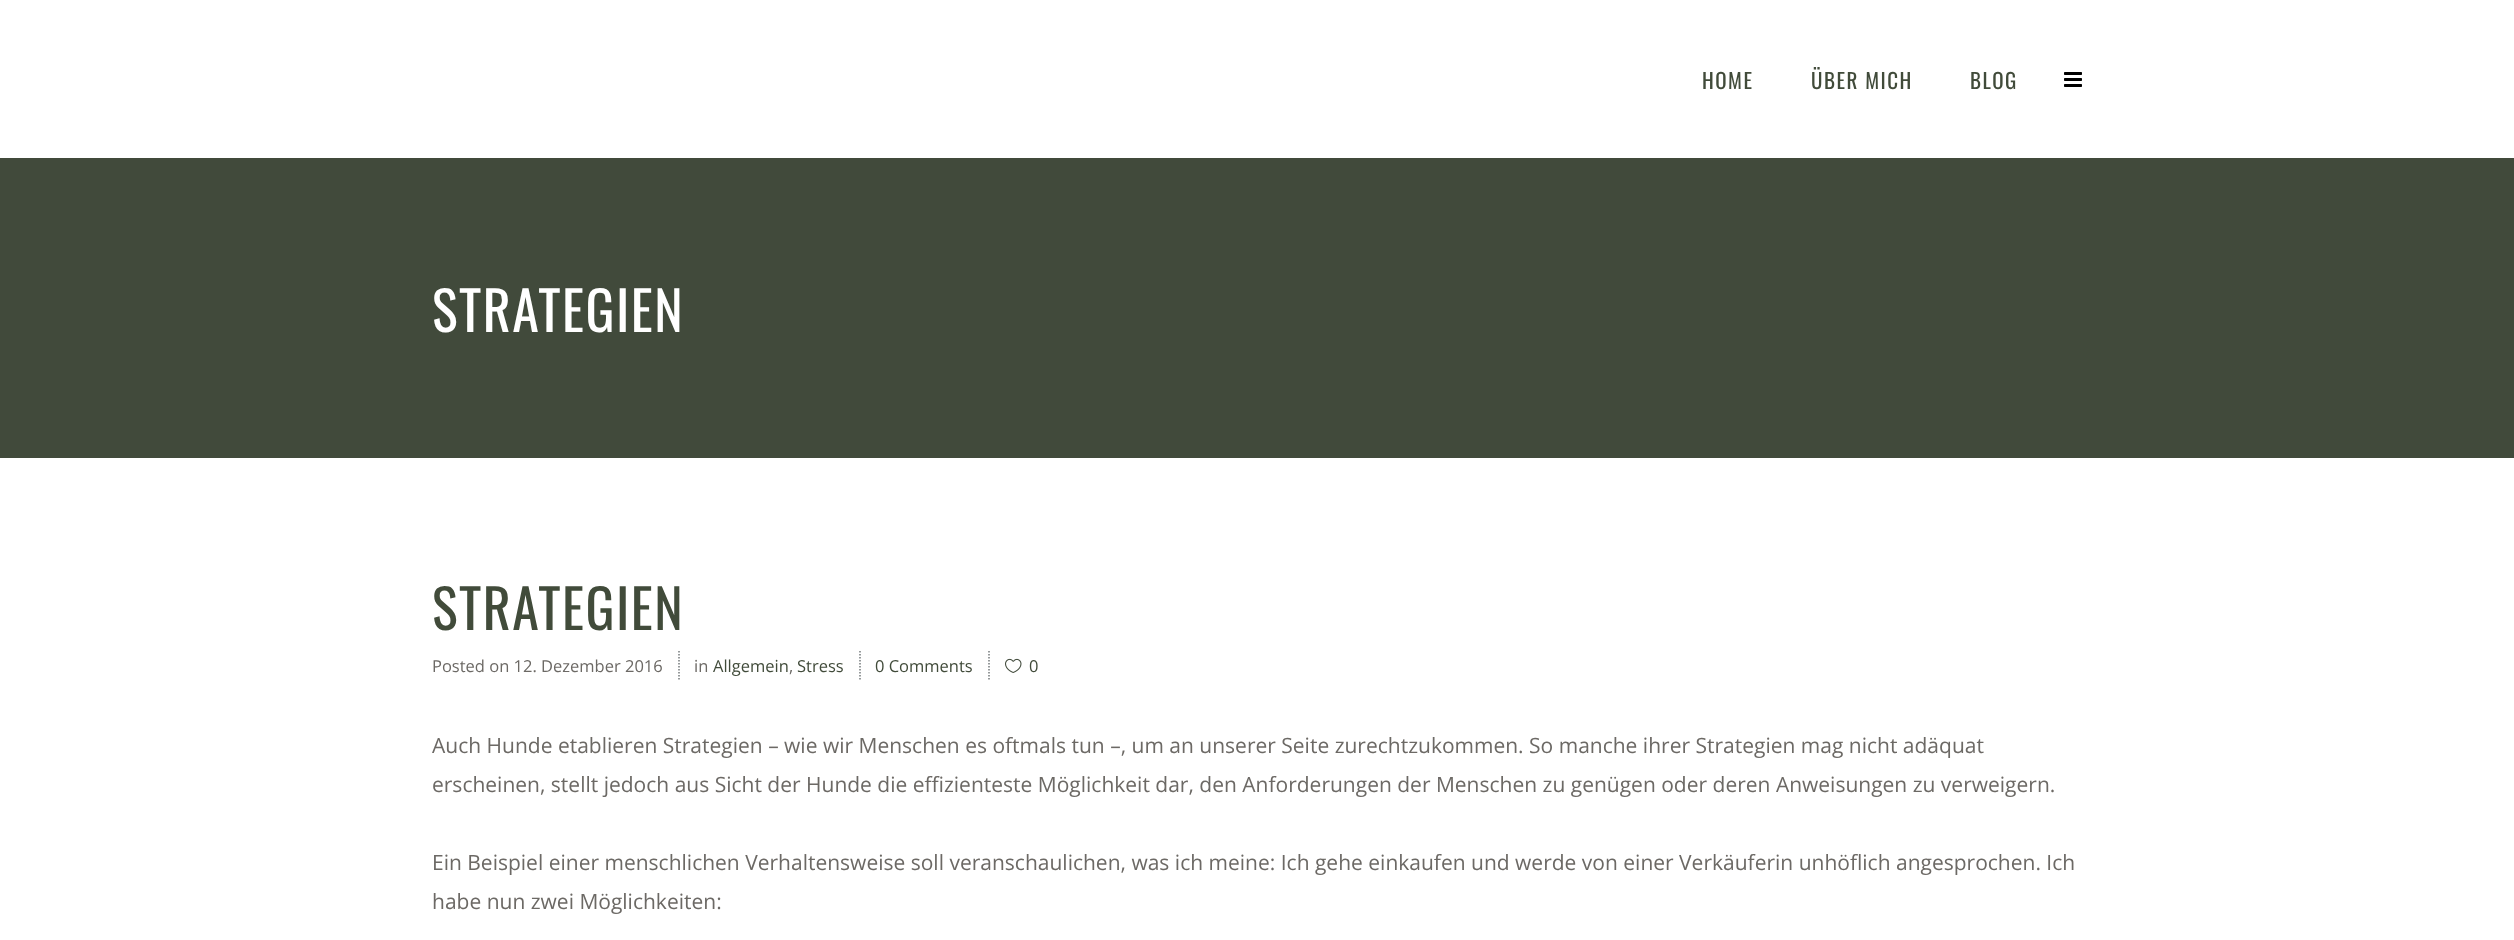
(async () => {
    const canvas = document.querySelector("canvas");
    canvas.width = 2514;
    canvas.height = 940;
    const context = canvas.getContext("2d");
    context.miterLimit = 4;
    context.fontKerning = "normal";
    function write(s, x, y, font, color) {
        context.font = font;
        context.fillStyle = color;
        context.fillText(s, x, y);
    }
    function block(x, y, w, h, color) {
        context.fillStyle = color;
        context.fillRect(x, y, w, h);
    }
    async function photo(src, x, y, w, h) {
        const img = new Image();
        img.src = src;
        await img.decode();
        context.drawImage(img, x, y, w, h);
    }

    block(0, 0, 2514, 940, "rgb(255, 255, 255)");
    context.letterSpacing = "1.5px";
    write("HOME", 1702, 89, "21px Oswald", "rgb(65, 75, 58)");
    write("ÜBER MICH", 1811, 89, "21px Oswald", "rgb(65, 75, 58)");
    write("BLOG", 1970, 89, "21px Oswald", "rgb(65, 75, 58)");
    await photo("media/1.png", 2064, 72, 18, 15);
    block(0, 158, 2514, 300, "rgb(65, 74, 59)");
    write("STRATEGIEN", 432, 332, "54px Oswald", "rgb(255, 255, 255)");
    write("STRATEGIEN", 432, 630, "54px Oswald", "rgb(65, 75, 58)");
    context.beginPath();
    context.moveTo(679, 651);
    context.lineTo(679, 681);
    context.strokeStyle = "rgb(116, 121, 123)";
    context.lineWidth = 1.5;
    context.setLineDash([1.5, 1.5]);
    context.stroke();
    context.letterSpacing = "0px";
    write("Posted on 12. Dezember 2016", 432, 672, "16.5px Open Sans", "rgb(108, 105, 101)");
    context.beginPath();
    context.moveTo(860, 651);
    context.lineTo(860, 681);
    context.stroke();
    write("in", 694, 672, "16.5px Open Sans", "rgb(108, 105, 101)");
    write("Allgemein", 713, 672, "16.5px Open Sans", "rgb(65, 75, 58)");
    write(",", 789, 672, "16.5px Open Sans", "rgb(108, 105, 101)");
    write("Stress", 797, 672, "16.5px Open Sans", "rgb(65, 75, 58)");
    context.beginPath();
    context.moveTo(989, 651);
    context.lineTo(989, 681);
    context.stroke();
    write("0 Comments", 875, 672, "16.5px Open Sans", "rgb(65, 75, 58)");
    await photo("media/2.png", 1005, 658, 17, 15);
    write("0", 1029, 672, "16.5px Open Sans", "rgb(65, 75, 58)");
    write("Auch Hunde etablieren Strategien – wie wir Menschen es oftmals tun –, um an unserer Seite zurechtzukommen. So manche ihrer Strategien mag nicht adäquat", 432, 753, "21px Open Sans", "rgb(108, 105, 101)");
    write("erscheinen, stellt jedoch aus Sicht der Hunde die effizienteste Möglichkeit dar, den Anforderungen der Menschen zu genügen oder deren Anweisungen zu verweigern.", 432, 792, "21px Open Sans", "rgb(108, 105, 101)");
    write("Ein Beispiel einer menschlichen Verhaltensweise soll veranschaulichen, was ich meine: Ich gehe einkaufen und werde von einer Verkäuferin unhöflich angesprochen. Ich", 432, 870, "21px Open Sans", "rgb(108, 105, 101)");
    write("habe nun zwei Möglichkeiten:", 432, 909, "21px Open Sans", "rgb(108, 105, 101)");
})();
